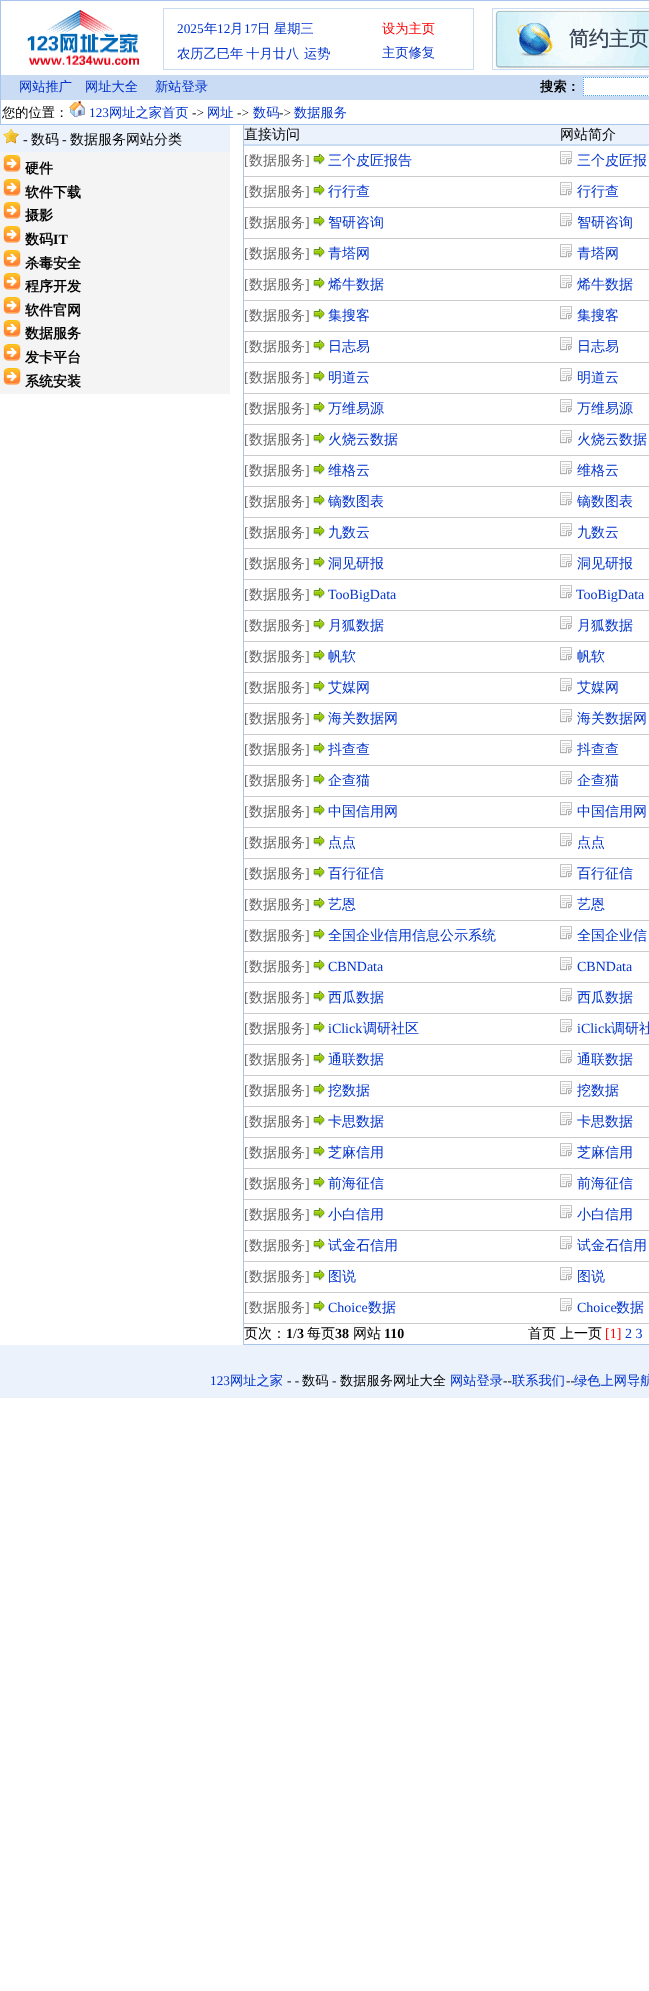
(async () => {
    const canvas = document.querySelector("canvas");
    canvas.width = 649;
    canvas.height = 1991;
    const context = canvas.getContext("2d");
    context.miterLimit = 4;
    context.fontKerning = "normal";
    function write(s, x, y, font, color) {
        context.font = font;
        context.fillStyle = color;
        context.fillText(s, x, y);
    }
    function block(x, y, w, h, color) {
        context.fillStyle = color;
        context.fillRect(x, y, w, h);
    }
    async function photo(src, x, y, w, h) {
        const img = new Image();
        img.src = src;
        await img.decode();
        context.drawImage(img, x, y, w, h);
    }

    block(0, 0, 649, 1991, "rgb(255, 255, 255)");
    context.strokeStyle = "rgb(169, 197, 235)";
    context.strokeRect(0.5, 0.5, 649, 124);
    await photo("media/1.png", 27, 10, 112, 55);
    context.strokeStyle = "rgb(202, 219, 244)";
    context.strokeRect(163.5, 8.5, 310, 61);
    write("2025", 177, 33, "13.25px Liberation Serif", "rgb(0, 51, 204)");
    write("年", 204, 33, "500 13.25px WenQuanYi Zen Hei", "rgb(0, 51, 204)");
    write("12", 217, 33, "13.25px Liberation Serif", "rgb(0, 51, 204)");
    write("月", 230, 33, "500 13.25px WenQuanYi Zen Hei", "rgb(0, 51, 204)");
    write("17", 244, 33, "13.25px Liberation Serif", "rgb(0, 51, 204)");
    write("日", 257, 33, "500 13.25px WenQuanYi Zen Hei", "rgb(0, 51, 204)");
    write("星期三", 274, 33, "500 13.25px WenQuanYi Zen Hei", "rgb(0, 51, 204)");
    context.wordSpacing = "-1px";
    write("农历乙巳年 十月廿八", 177, 58, "500 13.25px WenQuanYi Zen Hei", "rgb(0, 51, 204)");
    context.wordSpacing = "0px";
    write("运势", 304, 58, "500 13.25px WenQuanYi Zen Hei", "rgb(0, 51, 204)");
    write("设为主页", 382, 33, "500 13.25px WenQuanYi Zen Hei", "rgb(255, 0, 0)");
    write("主页修复", 382, 57, "500 13.25px WenQuanYi Zen Hei", "rgb(0, 51, 204)");
    context.strokeRect(492.5, 8.5, 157, 61);
    await photo("media/2.png", 495, 9, 154, 60);
    block(1, 75, 648, 25, "rgb(202, 219, 244)");
    write("网站推广", 19, 91, "500 13.25px WenQuanYi Zen Hei", "rgb(0, 51, 204)");
    write("网址大全", 85, 91, "500 13.25px WenQuanYi Zen Hei", "rgb(0, 51, 204)");
    write("新站登录", 155, 91, "500 13.25px WenQuanYi Zen Hei", "rgb(0, 51, 204)");
    write("搜索：", 540, 91, "bold 13.25px WenQuanYi Zen Hei", "rgb(0, 0, 0)");
    block(583, 77, 66, 19, "rgb(255, 255, 255)");
    context.beginPath();
    context.moveTo(583, 77.5);
    context.lineTo(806, 77.5);
    context.strokeStyle = "rgb(66, 165, 247)";
    context.setLineDash([1, 1]);
    context.stroke();
    context.beginPath();
    context.moveTo(583, 95.5);
    context.lineTo(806, 95.5);
    context.stroke();
    context.beginPath();
    context.moveTo(583.5, 77);
    context.lineTo(583.5, 96);
    context.stroke();
    write("您的位置：", 2, 117, "500 13.25px WenQuanYi Zen Hei", "rgb(0, 0, 0)");
    await photo("media/3.png", 69, 101, 16, 16);
    write("123", 89, 117, "13.25px Liberation Serif", "rgb(0, 51, 204)");
    write("网址之家首页", 109, 117, "500 13.25px WenQuanYi Zen Hei", "rgb(0, 51, 204)");
    write("->", 192, 117, "13.25px Liberation Serif", "rgb(0, 0, 0)");
    write("网址", 207, 117, "500 13.25px WenQuanYi Zen Hei", "rgb(0, 51, 204)");
    write("->", 237, 117, "13.25px Liberation Serif", "rgb(0, 0, 0)");
    write("数码", 253, 117, "500 13.25px WenQuanYi Zen Hei", "rgb(0, 51, 204)");
    write("->", 279, 117, "13.25px Liberation Serif", "rgb(0, 0, 0)");
    write("数据服务", 294, 117, "500 13.25px WenQuanYi Zen Hei", "rgb(0, 51, 204)");
    block(0, 152, 230, 242, "rgb(244, 244, 244)");
    block(0, 125, 230, 27, "rgb(235, 242, 252)");
    await photo("media/4.png", 3, 128, 16, 16);
    write("-", 23, 144, "14px Liberation Serif", "rgb(0, 0, 0)");
    write("数码", 31, 144, "500 14px WenQuanYi Zen Hei", "rgb(0, 0, 0)");
    write("-", 62, 144, "14px Liberation Serif", "rgb(0, 0, 0)");
    write("数据服务网站分类", 70, 144, "500 14px WenQuanYi Zen Hei", "rgb(0, 0, 0)");
    await photo("media/5.png", 3, 155, 18, 17);
    write("硬件", 25, 173, "bold 14px WenQuanYi Zen Hei", "rgb(0, 0, 0)");
    await photo("media/5.png", 3, 179, 18, 17);
    write("软件下载", 25, 197, "bold 14px WenQuanYi Zen Hei", "rgb(0, 0, 0)");
    await photo("media/5.png", 3, 202, 18, 17);
    write("摄影", 25, 220, "bold 14px WenQuanYi Zen Hei", "rgb(0, 0, 0)");
    await photo("media/5.png", 3, 226, 18, 17);
    write("数码", 25, 244, "bold 14px WenQuanYi Zen Hei", "rgb(0, 0, 0)");
    write("IT", 53, 244, "bold 14px Liberation Serif", "rgb(0, 0, 0)");
    await photo("media/5.png", 3, 250, 18, 17);
    write("杀毒安全", 25, 268, "bold 14px WenQuanYi Zen Hei", "rgb(0, 0, 0)");
    await photo("media/5.png", 3, 273, 18, 17);
    write("程序开发", 25, 291, "bold 14px WenQuanYi Zen Hei", "rgb(0, 0, 0)");
    await photo("media/5.png", 3, 297, 18, 17);
    write("软件官网", 25, 315, "bold 14px WenQuanYi Zen Hei", "rgb(0, 0, 0)");
    await photo("media/5.png", 3, 320, 18, 17);
    write("数据服务", 25, 338, "bold 14px WenQuanYi Zen Hei", "rgb(0, 0, 0)");
    await photo("media/5.png", 3, 344, 18, 17);
    write("发卡平台", 25, 362, "bold 14px WenQuanYi Zen Hei", "rgb(0, 0, 0)");
    await photo("media/5.png", 3, 368, 18, 17);
    write("系统安装", 25, 386, "bold 14px WenQuanYi Zen Hei", "rgb(0, 0, 0)");
    block(243, 1344, 406, 1, "rgb(169, 197, 235)");
    block(243, 125, 1, 1220, "rgb(169, 197, 235)");
    block(244, 125, 405, 19, "rgb(235, 242, 252)");
    write("直接访问", 244, 139, "500 14px WenQuanYi Zen Hei", "rgb(0, 0, 0)");
    write("网站简介", 560, 139, "500 14px WenQuanYi Zen Hei", "rgb(0, 0, 0)");
    block(244, 144, 405, 2, "rgb(202, 219, 244)");
    write("[", 244, 165, "14px Liberation Serif", "rgb(102, 102, 102)");
    write("数据服务", 249, 165, "500 14px WenQuanYi Zen Hei", "rgb(102, 102, 102)");
    write("]", 305, 165, "14px Liberation Serif", "rgb(102, 102, 102)");
    await photo("media/6.png", 313, 153, 12, 12);
    write("三个皮匠报告", 328, 165, "500 14px WenQuanYi Zen Hei", "rgb(0, 51, 204)");
    await photo("media/7.png", 560, 151, 12, 14);
    write("三个皮匠报", 577, 165, "500 14px WenQuanYi Zen Hei", "rgb(0, 51, 204)");
    block(244, 176, 405, 1, "rgb(204, 204, 204)");
    write("[", 244, 196, "14px Liberation Serif", "rgb(102, 102, 102)");
    write("数据服务", 249, 196, "500 14px WenQuanYi Zen Hei", "rgb(102, 102, 102)");
    write("]", 305, 196, "14px Liberation Serif", "rgb(102, 102, 102)");
    await photo("media/6.png", 313, 184, 12, 12);
    write("行行查", 328, 196, "500 14px WenQuanYi Zen Hei", "rgb(0, 51, 204)");
    await photo("media/7.png", 560, 182, 12, 14);
    write("行行查", 577, 196, "500 14px WenQuanYi Zen Hei", "rgb(0, 51, 204)");
    block(244, 207, 405, 1, "rgb(204, 204, 204)");
    write("[", 244, 227, "14px Liberation Serif", "rgb(102, 102, 102)");
    write("数据服务", 249, 227, "500 14px WenQuanYi Zen Hei", "rgb(102, 102, 102)");
    write("]", 305, 227, "14px Liberation Serif", "rgb(102, 102, 102)");
    await photo("media/6.png", 313, 215, 12, 12);
    write("智研咨询", 328, 227, "500 14px WenQuanYi Zen Hei", "rgb(0, 51, 204)");
    await photo("media/7.png", 560, 213, 12, 14);
    write("智研咨询", 577, 227, "500 14px WenQuanYi Zen Hei", "rgb(0, 51, 204)");
    block(244, 238, 405, 1, "rgb(204, 204, 204)");
    write("[", 244, 258, "14px Liberation Serif", "rgb(102, 102, 102)");
    write("数据服务", 249, 258, "500 14px WenQuanYi Zen Hei", "rgb(102, 102, 102)");
    write("]", 305, 258, "14px Liberation Serif", "rgb(102, 102, 102)");
    await photo("media/6.png", 313, 246, 12, 12);
    write("青塔网", 328, 258, "500 14px WenQuanYi Zen Hei", "rgb(0, 51, 204)");
    await photo("media/7.png", 560, 244, 12, 14);
    write("青塔网", 577, 258, "500 14px WenQuanYi Zen Hei", "rgb(0, 51, 204)");
    block(244, 269, 405, 1, "rgb(204, 204, 204)");
    write("[", 244, 289, "14px Liberation Serif", "rgb(102, 102, 102)");
    write("数据服务", 249, 289, "500 14px WenQuanYi Zen Hei", "rgb(102, 102, 102)");
    write("]", 305, 289, "14px Liberation Serif", "rgb(102, 102, 102)");
    await photo("media/6.png", 313, 277, 12, 12);
    write("烯牛数据", 328, 289, "500 14px WenQuanYi Zen Hei", "rgb(0, 51, 204)");
    await photo("media/7.png", 560, 275, 12, 14);
    write("烯牛数据", 577, 289, "500 14px WenQuanYi Zen Hei", "rgb(0, 51, 204)");
    block(244, 300, 405, 1, "rgb(204, 204, 204)");
    write("[", 244, 320, "14px Liberation Serif", "rgb(102, 102, 102)");
    write("数据服务", 249, 320, "500 14px WenQuanYi Zen Hei", "rgb(102, 102, 102)");
    write("]", 305, 320, "14px Liberation Serif", "rgb(102, 102, 102)");
    await photo("media/6.png", 313, 308, 12, 12);
    write("集搜客", 328, 320, "500 14px WenQuanYi Zen Hei", "rgb(0, 51, 204)");
    await photo("media/7.png", 560, 306, 12, 14);
    write("集搜客", 577, 320, "500 14px WenQuanYi Zen Hei", "rgb(0, 51, 204)");
    block(244, 331, 405, 1, "rgb(204, 204, 204)");
    write("[", 244, 351, "14px Liberation Serif", "rgb(102, 102, 102)");
    write("数据服务", 249, 351, "500 14px WenQuanYi Zen Hei", "rgb(102, 102, 102)");
    write("]", 305, 351, "14px Liberation Serif", "rgb(102, 102, 102)");
    await photo("media/6.png", 313, 339, 12, 12);
    write("日志易", 328, 351, "500 14px WenQuanYi Zen Hei", "rgb(0, 51, 204)");
    await photo("media/7.png", 560, 337, 12, 14);
    write("日志易", 577, 351, "500 14px WenQuanYi Zen Hei", "rgb(0, 51, 204)");
    block(244, 362, 405, 1, "rgb(204, 204, 204)");
    write("[", 244, 382, "14px Liberation Serif", "rgb(102, 102, 102)");
    write("数据服务", 249, 382, "500 14px WenQuanYi Zen Hei", "rgb(102, 102, 102)");
    write("]", 305, 382, "14px Liberation Serif", "rgb(102, 102, 102)");
    await photo("media/6.png", 313, 370, 12, 12);
    write("明道云", 328, 382, "500 14px WenQuanYi Zen Hei", "rgb(0, 51, 204)");
    await photo("media/7.png", 560, 368, 12, 14);
    write("明道云", 577, 382, "500 14px WenQuanYi Zen Hei", "rgb(0, 51, 204)");
    block(244, 393, 405, 1, "rgb(204, 204, 204)");
    write("[", 244, 413, "14px Liberation Serif", "rgb(102, 102, 102)");
    write("数据服务", 249, 413, "500 14px WenQuanYi Zen Hei", "rgb(102, 102, 102)");
    write("]", 305, 413, "14px Liberation Serif", "rgb(102, 102, 102)");
    await photo("media/6.png", 313, 401, 12, 12);
    write("万维易源", 328, 413, "500 14px WenQuanYi Zen Hei", "rgb(0, 51, 204)");
    await photo("media/7.png", 560, 399, 12, 14);
    write("万维易源", 577, 413, "500 14px WenQuanYi Zen Hei", "rgb(0, 51, 204)");
    block(244, 424, 405, 1, "rgb(204, 204, 204)");
    write("[", 244, 444, "14px Liberation Serif", "rgb(102, 102, 102)");
    write("数据服务", 249, 444, "500 14px WenQuanYi Zen Hei", "rgb(102, 102, 102)");
    write("]", 305, 444, "14px Liberation Serif", "rgb(102, 102, 102)");
    await photo("media/6.png", 313, 432, 12, 12);
    write("火烧云数据", 328, 444, "500 14px WenQuanYi Zen Hei", "rgb(0, 51, 204)");
    await photo("media/7.png", 560, 430, 12, 14);
    write("火烧云数据", 577, 444, "500 14px WenQuanYi Zen Hei", "rgb(0, 51, 204)");
    block(244, 455, 405, 1, "rgb(204, 204, 204)");
    write("[", 244, 475, "14px Liberation Serif", "rgb(102, 102, 102)");
    write("数据服务", 249, 475, "500 14px WenQuanYi Zen Hei", "rgb(102, 102, 102)");
    write("]", 305, 475, "14px Liberation Serif", "rgb(102, 102, 102)");
    await photo("media/6.png", 313, 463, 12, 12);
    write("维格云", 328, 475, "500 14px WenQuanYi Zen Hei", "rgb(0, 51, 204)");
    await photo("media/7.png", 560, 461, 12, 14);
    write("维格云", 577, 475, "500 14px WenQuanYi Zen Hei", "rgb(0, 51, 204)");
    block(244, 486, 405, 1, "rgb(204, 204, 204)");
    write("[", 244, 506, "14px Liberation Serif", "rgb(102, 102, 102)");
    write("数据服务", 249, 506, "500 14px WenQuanYi Zen Hei", "rgb(102, 102, 102)");
    write("]", 305, 506, "14px Liberation Serif", "rgb(102, 102, 102)");
    await photo("media/6.png", 313, 494, 12, 12);
    write("镝数图表", 328, 506, "500 14px WenQuanYi Zen Hei", "rgb(0, 51, 204)");
    await photo("media/7.png", 560, 492, 12, 14);
    write("镝数图表", 577, 506, "500 14px WenQuanYi Zen Hei", "rgb(0, 51, 204)");
    block(244, 517, 405, 1, "rgb(204, 204, 204)");
    write("[", 244, 537, "14px Liberation Serif", "rgb(102, 102, 102)");
    write("数据服务", 249, 537, "500 14px WenQuanYi Zen Hei", "rgb(102, 102, 102)");
    write("]", 305, 537, "14px Liberation Serif", "rgb(102, 102, 102)");
    await photo("media/6.png", 313, 525, 12, 12);
    write("九数云", 328, 537, "500 14px WenQuanYi Zen Hei", "rgb(0, 51, 204)");
    await photo("media/7.png", 560, 523, 12, 14);
    write("九数云", 577, 537, "500 14px WenQuanYi Zen Hei", "rgb(0, 51, 204)");
    block(244, 548, 405, 1, "rgb(204, 204, 204)");
    write("[", 244, 568, "14px Liberation Serif", "rgb(102, 102, 102)");
    write("数据服务", 249, 568, "500 14px WenQuanYi Zen Hei", "rgb(102, 102, 102)");
    write("]", 305, 568, "14px Liberation Serif", "rgb(102, 102, 102)");
    await photo("media/6.png", 313, 556, 12, 12);
    write("洞见研报", 328, 568, "500 14px WenQuanYi Zen Hei", "rgb(0, 51, 204)");
    await photo("media/7.png", 560, 554, 12, 14);
    write("洞见研报", 577, 568, "500 14px WenQuanYi Zen Hei", "rgb(0, 51, 204)");
    block(244, 579, 405, 1, "rgb(204, 204, 204)");
    write("[", 244, 599, "14px Liberation Serif", "rgb(102, 102, 102)");
    write("数据服务", 249, 599, "500 14px WenQuanYi Zen Hei", "rgb(102, 102, 102)");
    write("]", 305, 599, "14px Liberation Serif", "rgb(102, 102, 102)");
    await photo("media/6.png", 313, 587, 12, 12);
    write("TooBigData", 328, 599, "14px Liberation Serif", "rgb(0, 51, 204)");
    await photo("media/7.png", 560, 585, 12, 14);
    write("TooBigData", 576, 599, "14px Liberation Serif", "rgb(0, 51, 204)");
    block(244, 610, 405, 1, "rgb(204, 204, 204)");
    write("[", 244, 630, "14px Liberation Serif", "rgb(102, 102, 102)");
    write("数据服务", 249, 630, "500 14px WenQuanYi Zen Hei", "rgb(102, 102, 102)");
    write("]", 305, 630, "14px Liberation Serif", "rgb(102, 102, 102)");
    await photo("media/6.png", 313, 618, 12, 12);
    write("月狐数据", 328, 630, "500 14px WenQuanYi Zen Hei", "rgb(0, 51, 204)");
    await photo("media/7.png", 560, 616, 12, 14);
    write("月狐数据", 577, 630, "500 14px WenQuanYi Zen Hei", "rgb(0, 51, 204)");
    block(244, 641, 405, 1, "rgb(204, 204, 204)");
    write("[", 244, 661, "14px Liberation Serif", "rgb(102, 102, 102)");
    write("数据服务", 249, 661, "500 14px WenQuanYi Zen Hei", "rgb(102, 102, 102)");
    write("]", 305, 661, "14px Liberation Serif", "rgb(102, 102, 102)");
    await photo("media/6.png", 313, 649, 12, 12);
    write("帆软", 328, 661, "500 14px WenQuanYi Zen Hei", "rgb(0, 51, 204)");
    await photo("media/7.png", 560, 647, 12, 14);
    write("帆软", 577, 661, "500 14px WenQuanYi Zen Hei", "rgb(0, 51, 204)");
    block(244, 672, 405, 1, "rgb(204, 204, 204)");
    write("[", 244, 692, "14px Liberation Serif", "rgb(102, 102, 102)");
    write("数据服务", 249, 692, "500 14px WenQuanYi Zen Hei", "rgb(102, 102, 102)");
    write("]", 305, 692, "14px Liberation Serif", "rgb(102, 102, 102)");
    await photo("media/6.png", 313, 680, 12, 12);
    write("艾媒网", 328, 692, "500 14px WenQuanYi Zen Hei", "rgb(0, 51, 204)");
    await photo("media/7.png", 560, 678, 12, 14);
    write("艾媒网", 577, 692, "500 14px WenQuanYi Zen Hei", "rgb(0, 51, 204)");
    block(244, 703, 405, 1, "rgb(204, 204, 204)");
    write("[", 244, 723, "14px Liberation Serif", "rgb(102, 102, 102)");
    write("数据服务", 249, 723, "500 14px WenQuanYi Zen Hei", "rgb(102, 102, 102)");
    write("]", 305, 723, "14px Liberation Serif", "rgb(102, 102, 102)");
    await photo("media/6.png", 313, 711, 12, 12);
    write("海关数据网", 328, 723, "500 14px WenQuanYi Zen Hei", "rgb(0, 51, 204)");
    await photo("media/7.png", 560, 709, 12, 14);
    write("海关数据网", 577, 723, "500 14px WenQuanYi Zen Hei", "rgb(0, 51, 204)");
    block(244, 734, 405, 1, "rgb(204, 204, 204)");
    write("[", 244, 754, "14px Liberation Serif", "rgb(102, 102, 102)");
    write("数据服务", 249, 754, "500 14px WenQuanYi Zen Hei", "rgb(102, 102, 102)");
    write("]", 305, 754, "14px Liberation Serif", "rgb(102, 102, 102)");
    await photo("media/6.png", 313, 742, 12, 12);
    write("抖查查", 328, 754, "500 14px WenQuanYi Zen Hei", "rgb(0, 51, 204)");
    await photo("media/7.png", 560, 740, 12, 14);
    write("抖查查", 577, 754, "500 14px WenQuanYi Zen Hei", "rgb(0, 51, 204)");
    block(244, 765, 405, 1, "rgb(204, 204, 204)");
    write("[", 244, 785, "14px Liberation Serif", "rgb(102, 102, 102)");
    write("数据服务", 249, 785, "500 14px WenQuanYi Zen Hei", "rgb(102, 102, 102)");
    write("]", 305, 785, "14px Liberation Serif", "rgb(102, 102, 102)");
    await photo("media/6.png", 313, 773, 12, 12);
    write("企查猫", 328, 785, "500 14px WenQuanYi Zen Hei", "rgb(0, 51, 204)");
    await photo("media/7.png", 560, 771, 12, 14);
    write("企查猫", 577, 785, "500 14px WenQuanYi Zen Hei", "rgb(0, 51, 204)");
    block(244, 796, 405, 1, "rgb(204, 204, 204)");
    write("[", 244, 816, "14px Liberation Serif", "rgb(102, 102, 102)");
    write("数据服务", 249, 816, "500 14px WenQuanYi Zen Hei", "rgb(102, 102, 102)");
    write("]", 305, 816, "14px Liberation Serif", "rgb(102, 102, 102)");
    await photo("media/6.png", 313, 804, 12, 12);
    write("中国信用网", 328, 816, "500 14px WenQuanYi Zen Hei", "rgb(0, 51, 204)");
    await photo("media/7.png", 560, 802, 12, 14);
    write("中国信用网", 577, 816, "500 14px WenQuanYi Zen Hei", "rgb(0, 51, 204)");
    block(244, 827, 405, 1, "rgb(204, 204, 204)");
    write("[", 244, 847, "14px Liberation Serif", "rgb(102, 102, 102)");
    write("数据服务", 249, 847, "500 14px WenQuanYi Zen Hei", "rgb(102, 102, 102)");
    write("]", 305, 847, "14px Liberation Serif", "rgb(102, 102, 102)");
    await photo("media/6.png", 313, 835, 12, 12);
    write("点点", 328, 847, "500 14px WenQuanYi Zen Hei", "rgb(0, 51, 204)");
    await photo("media/7.png", 560, 833, 12, 14);
    write("点点", 577, 847, "500 14px WenQuanYi Zen Hei", "rgb(0, 51, 204)");
    block(244, 858, 405, 1, "rgb(204, 204, 204)");
    write("[", 244, 878, "14px Liberation Serif", "rgb(102, 102, 102)");
    write("数据服务", 249, 878, "500 14px WenQuanYi Zen Hei", "rgb(102, 102, 102)");
    write("]", 305, 878, "14px Liberation Serif", "rgb(102, 102, 102)");
    await photo("media/6.png", 313, 866, 12, 12);
    write("百行征信", 328, 878, "500 14px WenQuanYi Zen Hei", "rgb(0, 51, 204)");
    await photo("media/7.png", 560, 864, 12, 14);
    write("百行征信", 577, 878, "500 14px WenQuanYi Zen Hei", "rgb(0, 51, 204)");
    block(244, 889, 405, 1, "rgb(204, 204, 204)");
    write("[", 244, 909, "14px Liberation Serif", "rgb(102, 102, 102)");
    write("数据服务", 249, 909, "500 14px WenQuanYi Zen Hei", "rgb(102, 102, 102)");
    write("]", 305, 909, "14px Liberation Serif", "rgb(102, 102, 102)");
    await photo("media/6.png", 313, 897, 12, 12);
    write("艺恩", 328, 909, "500 14px WenQuanYi Zen Hei", "rgb(0, 51, 204)");
    await photo("media/7.png", 560, 895, 12, 14);
    write("艺恩", 577, 909, "500 14px WenQuanYi Zen Hei", "rgb(0, 51, 204)");
    block(244, 920, 405, 1, "rgb(204, 204, 204)");
    write("[", 244, 940, "14px Liberation Serif", "rgb(102, 102, 102)");
    write("数据服务", 249, 940, "500 14px WenQuanYi Zen Hei", "rgb(102, 102, 102)");
    write("]", 305, 940, "14px Liberation Serif", "rgb(102, 102, 102)");
    await photo("media/6.png", 313, 928, 12, 12);
    write("全国企业信用信息公示系统", 328, 940, "500 14px WenQuanYi Zen Hei", "rgb(0, 51, 204)");
    await photo("media/7.png", 560, 926, 12, 14);
    write("全国企业信", 577, 940, "500 14px WenQuanYi Zen Hei", "rgb(0, 51, 204)");
    block(244, 951, 405, 1, "rgb(204, 204, 204)");
    write("[", 244, 971, "14px Liberation Serif", "rgb(102, 102, 102)");
    write("数据服务", 249, 971, "500 14px WenQuanYi Zen Hei", "rgb(102, 102, 102)");
    write("]", 305, 971, "14px Liberation Serif", "rgb(102, 102, 102)");
    await photo("media/6.png", 313, 959, 12, 12);
    write("CBNData", 328, 971, "14px Liberation Serif", "rgb(0, 51, 204)");
    await photo("media/7.png", 560, 957, 12, 14);
    write("CBNData", 577, 971, "14px Liberation Serif", "rgb(0, 51, 204)");
    block(244, 982, 405, 1, "rgb(204, 204, 204)");
    write("[", 244, 1002, "14px Liberation Serif", "rgb(102, 102, 102)");
    write("数据服务", 249, 1002, "500 14px WenQuanYi Zen Hei", "rgb(102, 102, 102)");
    write("]", 305, 1002, "14px Liberation Serif", "rgb(102, 102, 102)");
    await photo("media/6.png", 313, 990, 12, 12);
    write("西瓜数据", 328, 1002, "500 14px WenQuanYi Zen Hei", "rgb(0, 51, 204)");
    await photo("media/7.png", 560, 988, 12, 14);
    write("西瓜数据", 577, 1002, "500 14px WenQuanYi Zen Hei", "rgb(0, 51, 204)");
    block(244, 1013, 405, 1, "rgb(204, 204, 204)");
    write("[", 244, 1033, "14px Liberation Serif", "rgb(102, 102, 102)");
    write("数据服务", 249, 1033, "500 14px WenQuanYi Zen Hei", "rgb(102, 102, 102)");
    write("]", 305, 1033, "14px Liberation Serif", "rgb(102, 102, 102)");
    await photo("media/6.png", 313, 1021, 12, 12);
    write("iClick", 328, 1033, "14px Liberation Serif", "rgb(0, 51, 204)");
    write("调研社区", 363, 1033, "500 14px WenQuanYi Zen Hei", "rgb(0, 51, 204)");
    await photo("media/7.png", 560, 1019, 12, 14);
    write("iClick", 577, 1033, "14px Liberation Serif", "rgb(0, 51, 204)");
    write("调研社", 611, 1033, "500 14px WenQuanYi Zen Hei", "rgb(0, 51, 204)");
    block(244, 1044, 405, 1, "rgb(204, 204, 204)");
    write("[", 244, 1064, "14px Liberation Serif", "rgb(102, 102, 102)");
    write("数据服务", 249, 1064, "500 14px WenQuanYi Zen Hei", "rgb(102, 102, 102)");
    write("]", 305, 1064, "14px Liberation Serif", "rgb(102, 102, 102)");
    await photo("media/6.png", 313, 1052, 12, 12);
    write("通联数据", 328, 1064, "500 14px WenQuanYi Zen Hei", "rgb(0, 51, 204)");
    await photo("media/7.png", 560, 1050, 12, 14);
    write("通联数据", 577, 1064, "500 14px WenQuanYi Zen Hei", "rgb(0, 51, 204)");
    block(244, 1075, 405, 1, "rgb(204, 204, 204)");
    write("[", 244, 1095, "14px Liberation Serif", "rgb(102, 102, 102)");
    write("数据服务", 249, 1095, "500 14px WenQuanYi Zen Hei", "rgb(102, 102, 102)");
    write("]", 305, 1095, "14px Liberation Serif", "rgb(102, 102, 102)");
    await photo("media/6.png", 313, 1083, 12, 12);
    write("挖数据", 328, 1095, "500 14px WenQuanYi Zen Hei", "rgb(0, 51, 204)");
    await photo("media/7.png", 560, 1081, 12, 14);
    write("挖数据", 577, 1095, "500 14px WenQuanYi Zen Hei", "rgb(0, 51, 204)");
    block(244, 1106, 405, 1, "rgb(204, 204, 204)");
    write("[", 244, 1126, "14px Liberation Serif", "rgb(102, 102, 102)");
    write("数据服务", 249, 1126, "500 14px WenQuanYi Zen Hei", "rgb(102, 102, 102)");
    write("]", 305, 1126, "14px Liberation Serif", "rgb(102, 102, 102)");
    await photo("media/6.png", 313, 1114, 12, 12);
    write("卡思数据", 328, 1126, "500 14px WenQuanYi Zen Hei", "rgb(0, 51, 204)");
    await photo("media/7.png", 560, 1112, 12, 14);
    write("卡思数据", 577, 1126, "500 14px WenQuanYi Zen Hei", "rgb(0, 51, 204)");
    block(244, 1137, 405, 1, "rgb(204, 204, 204)");
    write("[", 244, 1157, "14px Liberation Serif", "rgb(102, 102, 102)");
    write("数据服务", 249, 1157, "500 14px WenQuanYi Zen Hei", "rgb(102, 102, 102)");
    write("]", 305, 1157, "14px Liberation Serif", "rgb(102, 102, 102)");
    await photo("media/6.png", 313, 1145, 12, 12);
    write("芝麻信用", 328, 1157, "500 14px WenQuanYi Zen Hei", "rgb(0, 51, 204)");
    await photo("media/7.png", 560, 1143, 12, 14);
    write("芝麻信用", 577, 1157, "500 14px WenQuanYi Zen Hei", "rgb(0, 51, 204)");
    block(244, 1168, 405, 1, "rgb(204, 204, 204)");
    write("[", 244, 1188, "14px Liberation Serif", "rgb(102, 102, 102)");
    write("数据服务", 249, 1188, "500 14px WenQuanYi Zen Hei", "rgb(102, 102, 102)");
    write("]", 305, 1188, "14px Liberation Serif", "rgb(102, 102, 102)");
    await photo("media/6.png", 313, 1176, 12, 12);
    write("前海征信", 328, 1188, "500 14px WenQuanYi Zen Hei", "rgb(0, 51, 204)");
    await photo("media/7.png", 560, 1174, 12, 14);
    write("前海征信", 577, 1188, "500 14px WenQuanYi Zen Hei", "rgb(0, 51, 204)");
    block(244, 1199, 405, 1, "rgb(204, 204, 204)");
    write("[", 244, 1219, "14px Liberation Serif", "rgb(102, 102, 102)");
    write("数据服务", 249, 1219, "500 14px WenQuanYi Zen Hei", "rgb(102, 102, 102)");
    write("]", 305, 1219, "14px Liberation Serif", "rgb(102, 102, 102)");
    await photo("media/6.png", 313, 1207, 12, 12);
    write("小白信用", 328, 1219, "500 14px WenQuanYi Zen Hei", "rgb(0, 51, 204)");
    await photo("media/7.png", 560, 1205, 12, 14);
    write("小白信用", 577, 1219, "500 14px WenQuanYi Zen Hei", "rgb(0, 51, 204)");
    block(244, 1230, 405, 1, "rgb(204, 204, 204)");
    write("[", 244, 1250, "14px Liberation Serif", "rgb(102, 102, 102)");
    write("数据服务", 249, 1250, "500 14px WenQuanYi Zen Hei", "rgb(102, 102, 102)");
    write("]", 305, 1250, "14px Liberation Serif", "rgb(102, 102, 102)");
    await photo("media/6.png", 313, 1238, 12, 12);
    write("试金石信用", 328, 1250, "500 14px WenQuanYi Zen Hei", "rgb(0, 51, 204)");
    await photo("media/7.png", 560, 1236, 12, 14);
    write("试金石信用", 577, 1250, "500 14px WenQuanYi Zen Hei", "rgb(0, 51, 204)");
    block(244, 1261, 405, 1, "rgb(204, 204, 204)");
    write("[", 244, 1281, "14px Liberation Serif", "rgb(102, 102, 102)");
    write("数据服务", 249, 1281, "500 14px WenQuanYi Zen Hei", "rgb(102, 102, 102)");
    write("]", 305, 1281, "14px Liberation Serif", "rgb(102, 102, 102)");
    await photo("media/6.png", 313, 1269, 12, 12);
    write("图说", 328, 1281, "500 14px WenQuanYi Zen Hei", "rgb(0, 51, 204)");
    await photo("media/7.png", 560, 1267, 12, 14);
    write("图说", 577, 1281, "500 14px WenQuanYi Zen Hei", "rgb(0, 51, 204)");
    block(244, 1292, 405, 1, "rgb(204, 204, 204)");
    write("[", 244, 1312, "14px Liberation Serif", "rgb(102, 102, 102)");
    write("数据服务", 249, 1312, "500 14px WenQuanYi Zen Hei", "rgb(102, 102, 102)");
    write("]", 305, 1312, "14px Liberation Serif", "rgb(102, 102, 102)");
    await photo("media/6.png", 313, 1300, 12, 12);
    write("Choice", 328, 1312, "14px Liberation Serif", "rgb(0, 51, 204)");
    write("数据", 368, 1312, "500 14px WenQuanYi Zen Hei", "rgb(0, 51, 204)");
    await photo("media/7.png", 560, 1298, 12, 14);
    write("Choice", 577, 1312, "14px Liberation Serif", "rgb(0, 51, 204)");
    write("数据", 616, 1312, "500 14px WenQuanYi Zen Hei", "rgb(0, 51, 204)");
    block(244, 1323, 405, 1, "rgb(204, 204, 204)");
    write("页次：", 244, 1338, "500 14px WenQuanYi Zen Hei", "rgb(0, 0, 0)");
    write("1", 286, 1338, "bold 14px Liberation Serif", "rgb(0, 0, 0)");
    write("/", 293, 1338, "14px Liberation Serif", "rgb(0, 0, 0)");
    write("3", 297, 1338, "bold 14px Liberation Serif", "rgb(0, 0, 0)");
    write("每页", 307, 1338, "500 14px WenQuanYi Zen Hei", "rgb(0, 0, 0)");
    write("38", 335, 1338, "bold 14px Liberation Serif", "rgb(0, 0, 0)");
    write("网站", 353, 1338, "500 14px WenQuanYi Zen Hei", "rgb(0, 0, 0)");
    write("110", 384, 1338, "bold 14px Liberation Serif", "rgb(0, 0, 0)");
    write("首页", 528, 1338, "500 14px WenQuanYi Zen Hei", "rgb(0, 0, 0)");
    write("上一页", 560, 1338, "500 14px WenQuanYi Zen Hei", "rgb(0, 0, 0)");
    write("[1]", 605, 1338, "14px Liberation Serif", "rgb(255, 0, 0)");
    write("2 3", 625, 1338, "14px Liberation Serif", "rgb(0, 51, 204)");
    block(0, 1345, 649, 53, "rgb(235, 242, 252)");
    write("123", 210, 1385, "13.25px Liberation Serif", "rgb(0, 51, 204)");
    write("网址之家", 230, 1385, "500 13.25px WenQuanYi Zen Hei", "rgb(0, 51, 204)");
    write("- -", 287, 1385, "13.25px Liberation Serif", "rgb(0, 0, 0)");
    write("数码", 302, 1385, "500 13.25px WenQuanYi Zen Hei", "rgb(0, 0, 0)");
    write("-", 332, 1385, "13.25px Liberation Serif", "rgb(0, 0, 0)");
    write("数据服务网址大全", 340, 1385, "500 13.25px WenQuanYi Zen Hei", "rgb(0, 0, 0)");
    write("网站登录", 450, 1385, "500 13.25px WenQuanYi Zen Hei", "rgb(0, 51, 204)");
    write("--", 503, 1385, "13.25px Liberation Serif", "rgb(0, 0, 0)");
    write("联系我们", 512, 1385, "500 13.25px WenQuanYi Zen Hei", "rgb(0, 51, 204)");
    write("--", 566, 1385, "13.25px Liberation Serif", "rgb(0, 0, 0)");
    write("绿色上网导航", 574, 1385, "500 13.25px WenQuanYi Zen Hei", "rgb(0, 51, 204)");
})();
